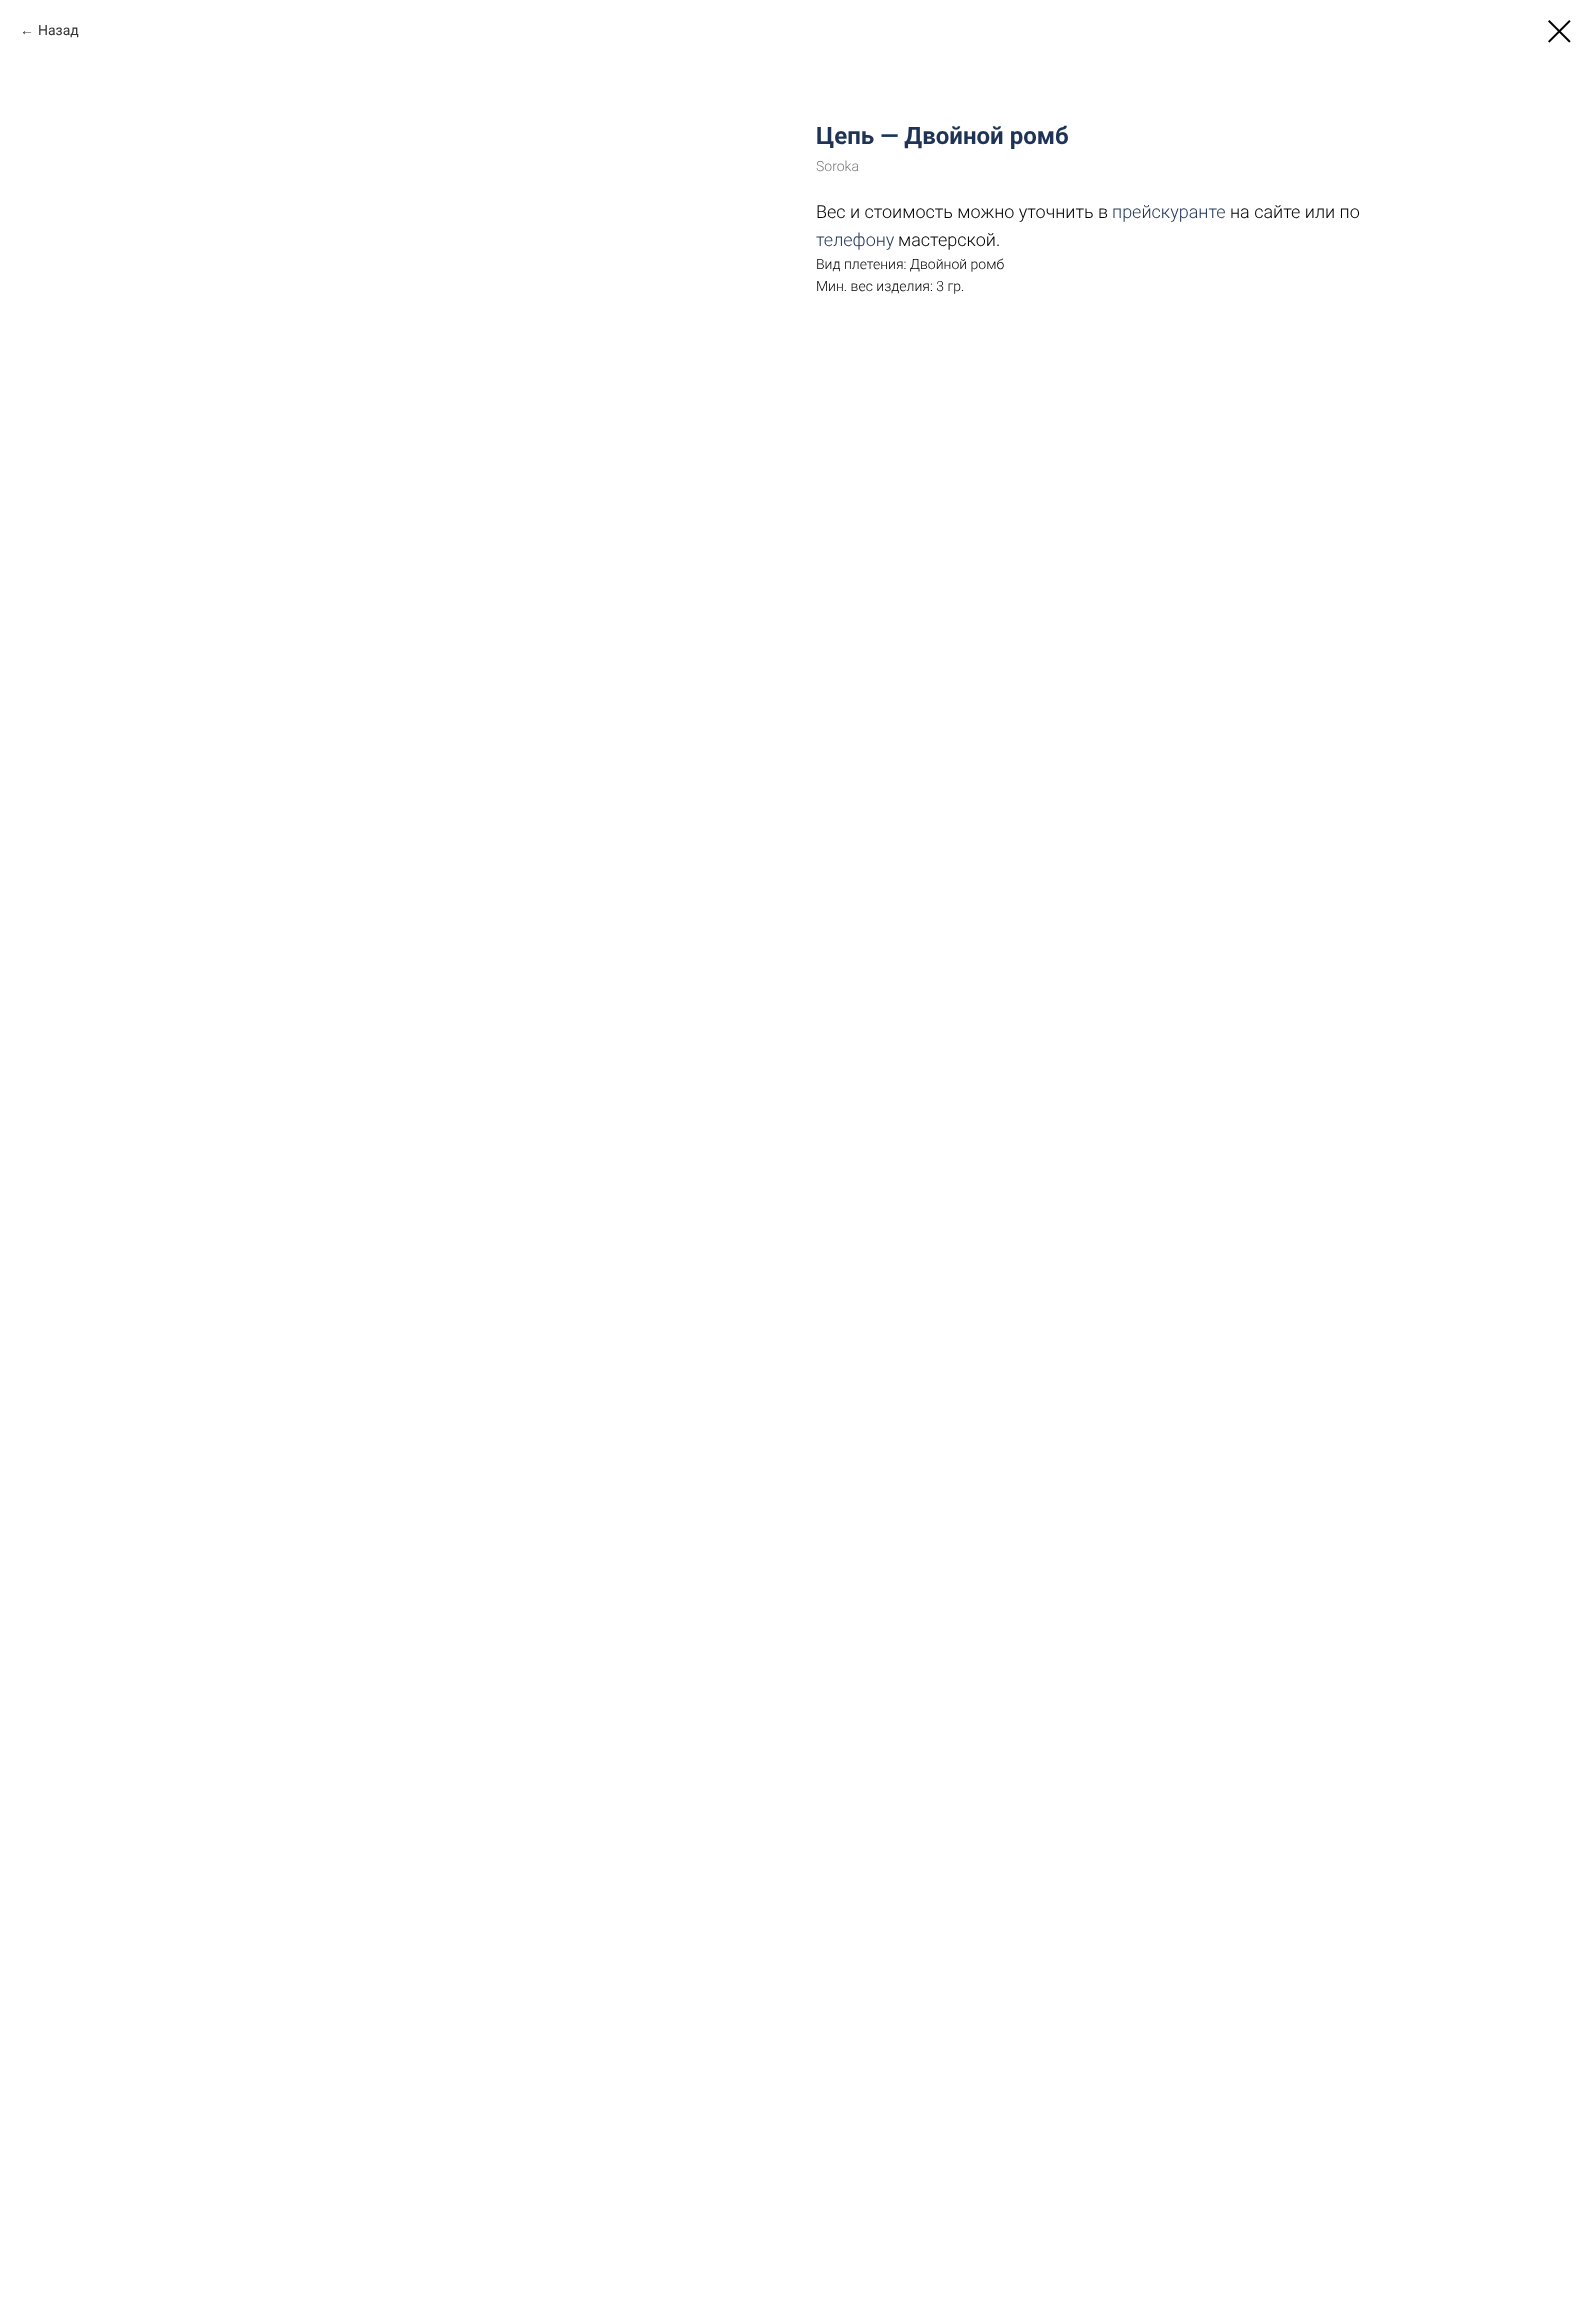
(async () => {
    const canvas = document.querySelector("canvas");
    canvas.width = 1591;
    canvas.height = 2320;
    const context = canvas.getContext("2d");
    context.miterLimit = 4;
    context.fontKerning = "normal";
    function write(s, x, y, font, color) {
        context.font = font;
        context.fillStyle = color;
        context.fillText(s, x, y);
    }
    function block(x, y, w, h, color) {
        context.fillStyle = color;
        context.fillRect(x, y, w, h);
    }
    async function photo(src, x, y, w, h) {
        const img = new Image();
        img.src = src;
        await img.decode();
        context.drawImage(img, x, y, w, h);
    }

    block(0, 0, 1591, 2320, "rgb(255, 255, 255)");
    write("←", 20, 35, "14px Liberation Sans", "rgb(51, 51, 51)");
    write("Назад", 38, 35, "14px Roboto", "rgb(51, 51, 51)");
    await photo("media/1.png", 1548, 20, 23, 23);
    write("Цепь — Двойной ромб", 816, 144, "bold 24px Roboto", "rgb(30, 51, 86)");
    write("Soroka", 816, 171, "300 14px Roboto", "rgb(119, 119, 119)");
    write("Вес и стоимость можно уточнить в", 816, 218, "300 18px Roboto", "rgb(0, 0, 0)");
    write("прейскуранте", 1112, 218, "300 18px Roboto", "rgb(30, 51, 86)");
    write("на сайте или по", 1230, 218, "300 18px Roboto", "rgb(0, 0, 0)");
    write("телефону", 816, 246, "300 18px Roboto", "rgb(30, 51, 86)");
    write("мастерской.", 898, 246, "300 18px Roboto", "rgb(0, 0, 0)");
    write("Вид плетения: Двойной ромб", 816, 269, "300 14px Roboto", "rgb(0, 0, 0)");
    write("Мин. вес изделия: 3 гр.", 816, 291, "300 14px Roboto", "rgb(0, 0, 0)");
})();
